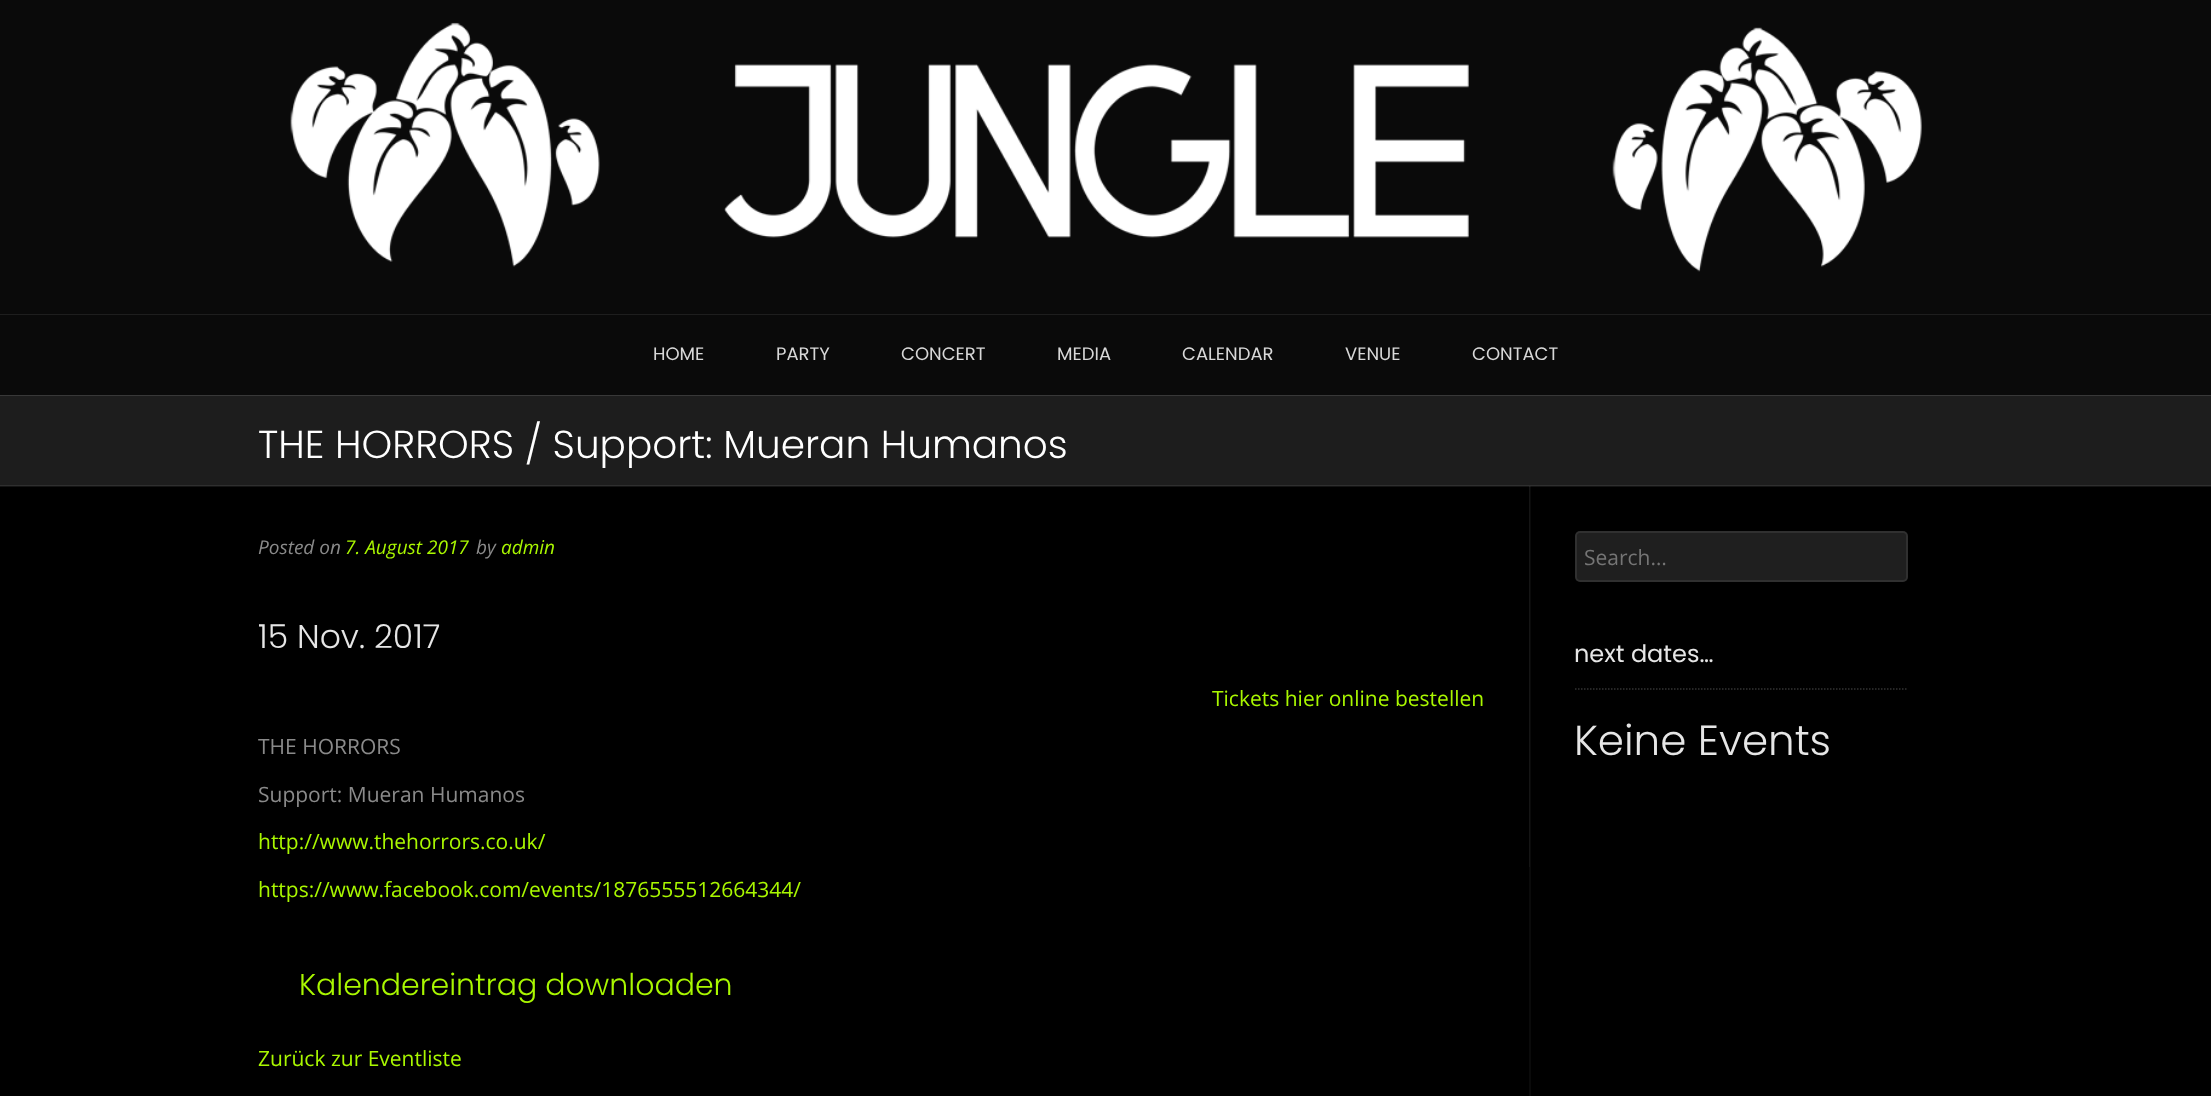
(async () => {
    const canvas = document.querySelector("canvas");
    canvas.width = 2211;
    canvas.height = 1096;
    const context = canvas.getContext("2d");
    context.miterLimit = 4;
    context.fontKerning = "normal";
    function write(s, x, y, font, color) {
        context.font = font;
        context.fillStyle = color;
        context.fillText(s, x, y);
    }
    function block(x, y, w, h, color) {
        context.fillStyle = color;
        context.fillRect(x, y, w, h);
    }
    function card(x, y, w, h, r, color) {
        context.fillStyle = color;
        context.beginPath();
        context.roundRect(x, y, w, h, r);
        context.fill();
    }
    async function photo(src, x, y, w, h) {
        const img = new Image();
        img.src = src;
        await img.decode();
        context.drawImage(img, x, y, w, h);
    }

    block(0, 0, 2211, 1096, "rgb(0, 0, 0)");
    block(1529, 486, 2, 610, "rgb(10, 10, 10)");
    block(1529, 486, 1, 381, "rgb(20, 20, 20)");
    block(0, 486, 2211, 1, "rgb(20, 20, 20)");
    block(1529, 486, 2, 1, "rgb(29, 29, 29)");
    block(1529, 486, 1, 1, "rgb(38, 38, 38)");
    block(0, 0, 2211, 395, "rgb(10, 10, 10)");
    block(0, 314, 2211, 1, "rgb(30, 30, 30)");
    await photo("media/1.png", 290, 22, 1632, 250);
    write("HOME", 653, 360, "18px Poppins", "rgb(216, 216, 216)");
    write("PARTY", 776, 360, "18px Poppins", "rgb(216, 216, 216)");
    write("CONCERT", 901, 360, "18px Poppins", "rgb(216, 216, 216)");
    write("MEDIA", 1057, 360, "18px Poppins", "rgb(216, 216, 216)");
    write("CALENDAR", 1182, 360, "18px Poppins", "rgb(216, 216, 216)");
    write("VENUE", 1345, 360, "18px Poppins", "rgb(216, 216, 216)");
    write("CONTACT", 1472, 360, "18px Poppins", "rgb(216, 216, 216)");
    block(0, 396, 2211, 89, "rgb(29, 29, 29)");
    block(0, 395, 2211, 1, "rgb(56, 56, 56)");
    block(0, 485, 2211, 1, "rgb(47, 47, 47)");
    write("THE HORRORS / Support: Mueran Humanos", 258, 458, "300 39px Poppins", "rgb(255, 255, 255)");
    write("Posted on", 258, 554, "italic 19px Open Sans", "rgb(138, 138, 138)");
    write("7. August 2017", 345, 554, "italic 19px Open Sans", "rgb(169, 247, 0)");
    write("by", 476, 554, "italic 19px Open Sans", "rgb(138, 138, 138)");
    write("admin", 501, 554, "italic 19px Open Sans", "rgb(169, 247, 0)");
    write("15 Nov. 2017", 258, 648, "300 33px Poppins", "rgb(230, 230, 230)");
    write("Tickets hier online bestellen", 1212, 706, "21px Open Sans", "rgb(169, 247, 0)");
    write("THE HORRORS", 258, 754, "21px Open Sans", "rgb(138, 138, 138)");
    write("Support: Mueran Humanos", 258, 802, "21px Open Sans", "rgb(138, 138, 138)");
    write("http://www.thehorrors.co.uk/", 258, 849, "21px Open Sans", "rgb(169, 247, 0)");
    write("https://www.facebook.com/events/1876555512664344/", 258, 897, "21px Open Sans", "rgb(169, 247, 0)");
    write("Kalendereintrag downloaden", 299, 995, "300 30px Poppins", "rgb(169, 247, 0)");
    write("Zurück zur Eventliste", 258, 1066, "21px Open Sans", "rgb(169, 247, 0)");
    card(1575, 531, 333, 51, 5, "rgb(31, 31, 31)");
    context.beginPath();
    context.roundRect(1576, 532, 331, 49, 4);
    context.strokeStyle = "rgba(255, 255, 255, 0.08)";
    context.lineWidth = 2;
    context.stroke();
    write("Search…", 1584, 565, "21px Open Sans", "rgb(117, 117, 117)");
    context.beginPath();
    context.moveTo(1575, 689);
    context.lineTo(1908, 689);
    context.strokeStyle = "rgb(51, 51, 51)";
    context.lineWidth = 1.5;
    context.setLineDash([1.5, 1.5]);
    context.stroke();
    write("next dates…", 1574, 662, "24px Poppins", "rgb(230, 230, 230)");
    write("Keine Events", 1574, 755, "300 42px Poppins", "rgb(230, 230, 230)");
})();
